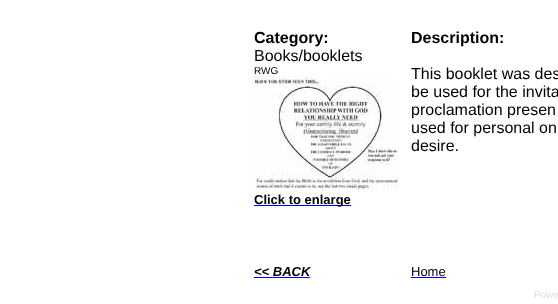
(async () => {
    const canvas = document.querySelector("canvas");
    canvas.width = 558;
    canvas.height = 304;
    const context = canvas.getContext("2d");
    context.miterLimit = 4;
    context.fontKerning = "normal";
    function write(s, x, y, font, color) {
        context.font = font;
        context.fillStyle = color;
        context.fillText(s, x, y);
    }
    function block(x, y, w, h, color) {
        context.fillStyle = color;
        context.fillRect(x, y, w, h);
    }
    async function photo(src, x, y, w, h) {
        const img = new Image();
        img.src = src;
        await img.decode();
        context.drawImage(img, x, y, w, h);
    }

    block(0, 0, 558, 304, "rgb(255, 255, 255)");
    write("Category:", 254, 43, "bold 16px Liberation Sans", "rgb(0, 0, 0)");
    write("Books/booklets", 254, 61, "16px Liberation Sans", "rgb(0, 0, 0)");
    write("RWG", 254, 74, "10px Liberation Sans", "rgb(0, 0, 0)");
    await photo("media/1.png", 254, 76, 144, 115);
    block(254, 205, 97, 1, "rgb(0, 0, 238)");
    write("Click to enlarge", 254, 204, "bold 13px Liberation Sans", "rgb(0, 0, 0)");
    write("Description:", 411, 43, "bold 16px Liberation Sans", "rgb(0, 0, 0)");
    write("This booklet was des", 411, 79, "16px Liberation Sans", "rgb(0, 0, 0)");
    write("be used for the invita", 411, 97, "16px Liberation Sans", "rgb(0, 0, 0)");
    write("proclamation presen", 411, 115, "16px Liberation Sans", "rgb(0, 0, 0)");
    write("used for personal on", 411, 133, "16px Liberation Sans", "rgb(0, 0, 0)");
    write("desire.", 411, 151, "16px Liberation Sans", "rgb(0, 0, 0)");
    write("<< BACK", 254, 276, "italic bold 13px Liberation Sans", "rgb(0, 0, 0)");
    block(254, 277, 56, 1, "rgb(0, 0, 238)");
    write("Home", 411, 276, "13px Liberation Sans", "rgb(0, 0, 0)");
    block(411, 277, 35, 1, "rgb(0, 0, 238)");
    write("Powe", 534, 298, "10px Liberation Sans", "rgb(221, 221, 221)");
})();
